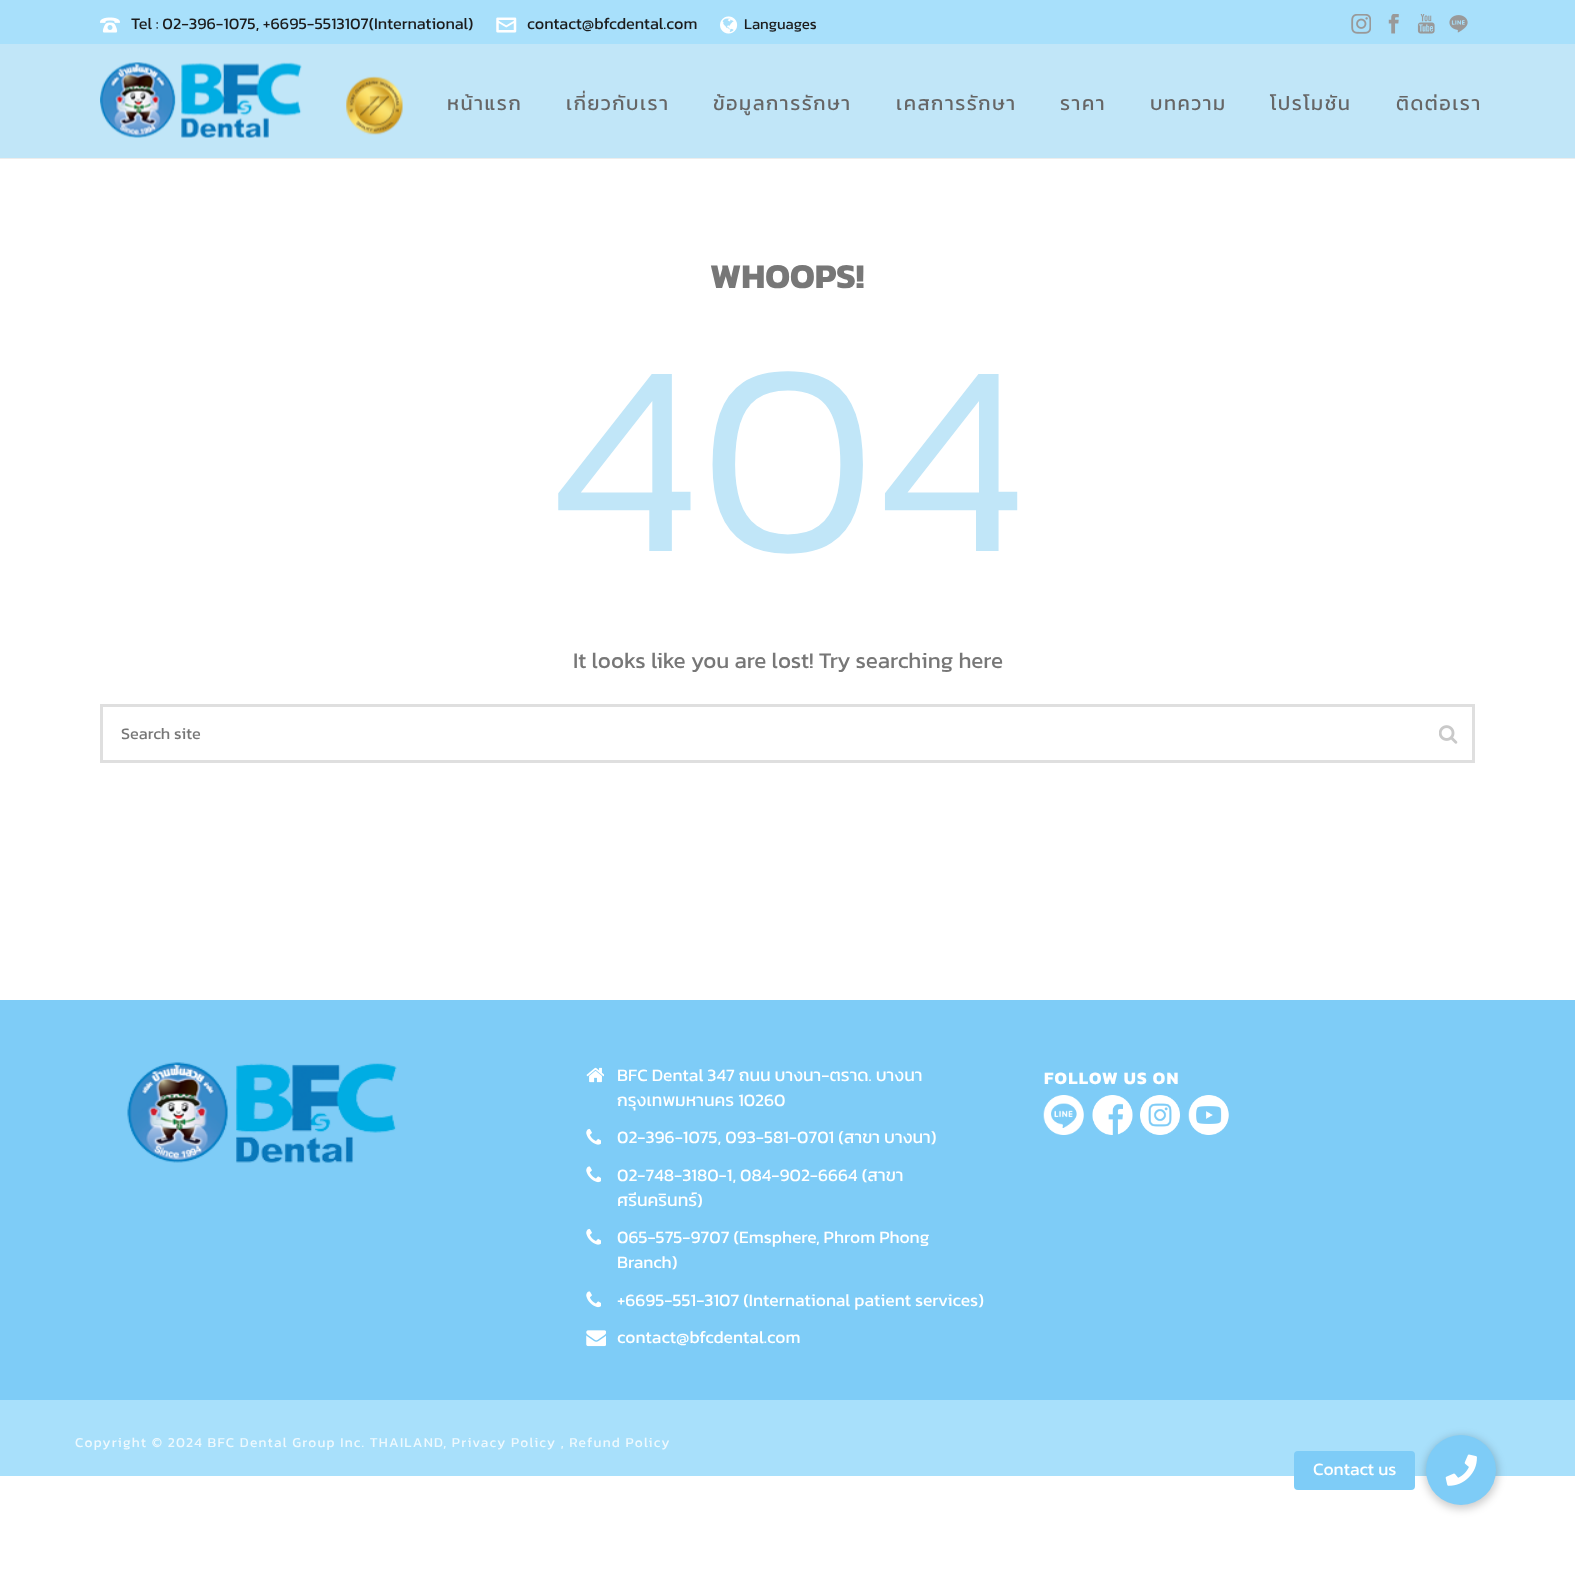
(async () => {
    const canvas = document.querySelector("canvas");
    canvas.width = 1575;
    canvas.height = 1583;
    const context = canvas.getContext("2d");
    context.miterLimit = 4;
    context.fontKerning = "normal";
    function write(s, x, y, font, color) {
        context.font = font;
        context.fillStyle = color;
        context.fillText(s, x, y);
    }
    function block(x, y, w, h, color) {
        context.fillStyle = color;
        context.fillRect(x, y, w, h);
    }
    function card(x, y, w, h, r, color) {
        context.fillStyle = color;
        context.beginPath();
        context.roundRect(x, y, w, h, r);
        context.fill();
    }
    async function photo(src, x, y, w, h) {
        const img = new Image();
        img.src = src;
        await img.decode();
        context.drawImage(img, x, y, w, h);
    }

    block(0, 0, 1575, 1583, "rgb(255, 255, 255)");
    block(0, 44, 1575, 114, "rgb(193, 230, 248)");
    block(0, 158, 1575, 1, "rgb(237, 237, 237)");
    block(0, 0, 1575, 44, "rgb(168, 224, 251)");
    await photo("media/1.png", 100, 17, 20, 16);
    write("Tel : 02-396-1075, +6695-5513107(International)", 131, 29, "16.25px Kanit", "rgb(28, 28, 28)");
    await photo("media/2.png", 496, 17, 21, 16);
    write("contact@bfcdental.com", 527, 29, "16.25px Kanit", "rgb(28, 28, 28)");
    await photo("media/3.png", 720, 16, 18, 18);
    write("Languages", 744, 29, "15px Kanit", "rgb(28, 28, 28)");
    await photo("media/4.png", 1351, 14, 20, 20);
    await photo("media/5.png", 1388, 14, 11, 20);
    await photo("media/6.png", 1417, 14, 18, 20);
    await photo("media/7.png", 1449, 15, 19, 18);
    await photo("media/8.png", 100, 62, 202, 76);
    await photo("media/9.png", 346, 76, 57, 59);
    context.letterSpacing = "1.5px";
    write("หน้าแรก", 447, 110, "20px Kanit", "rgb(102, 102, 102)");
    write("เกี่ยวกับเรา", 566, 110, "20px Kanit", "rgb(102, 102, 102)");
    write("ข้อมูลการรักษา", 713, 110, "20px Kanit", "rgb(102, 102, 102)");
    write("เคสการรักษา", 896, 110, "20px Kanit", "rgb(102, 102, 102)");
    write("ราคา", 1060, 110, "20px Kanit", "rgb(102, 102, 102)");
    write("บทความ", 1150, 110, "20px Kanit", "rgb(102, 102, 102)");
    write("โปรโมชัน", 1270, 110, "20px Kanit", "rgb(102, 102, 102)");
    write("ติดต่อเรา", 1396, 110, "20px Kanit", "rgb(102, 102, 102)");
    context.letterSpacing = "0px";
    write("WHOOPS!", 710, 288, "bold 35px Kanit", "rgb(119, 119, 119)");
    write("404", 550, 551, "300 275px Kanit", "rgb(193, 230, 248)");
    write("It looks like you are lost! Try searching here", 573, 668, "22.5px Kanit", "rgb(119, 119, 119)");
    context.strokeStyle = "rgb(223, 223, 223)";
    context.lineWidth = 3;
    context.strokeRect(101.5, 705.5, 1372, 56);
    write("Search site", 121, 739, "16.25px Kanit", "rgb(119, 119, 119)");
    await photo("media/10.png", 1439, 725, 19, 19);
    block(0, 1000, 1575, 400, "rgb(126, 204, 247)");
    await photo("media/11.png", 127, 1062, 270, 101);
    await photo("media/12.png", 586, 1067, 18, 16);
    write("BFC Dental 347 ถนน บางนา-ตราด. บางนา", 617, 1081, "17.5px Kanit", "rgb(255, 255, 255)");
    write("กรุงเทพมหานคร 10260", 617, 1106, "17.5px Kanit", "rgb(255, 255, 255)");
    await photo("media/13.png", 586, 1128, 15, 17);
    write("02-396-1075, 093-581-0701 (สาขา บางนา)", 617, 1143, "17.5px Kanit", "rgb(255, 255, 255)");
    await photo("media/14.png", 586, 1166, 15, 17);
    write("02-748-3180-1, 084-902-6664 (สาขา", 617, 1181, "17.5px Kanit", "rgb(255, 255, 255)");
    write("ศรีนครินทร์)", 617, 1206, "17.5px Kanit", "rgb(255, 255, 255)");
    await photo("media/13.png", 586, 1228, 15, 17);
    write("065-575-9707 (Emsphere, Phrom Phong", 617, 1243, "17.5px Kanit", "rgb(255, 255, 255)");
    write("Branch)", 617, 1268, "17.5px Kanit", "rgb(255, 255, 255)");
    await photo("media/14.png", 586, 1291, 15, 17);
    write("+6695-551-3107 (International patient services)", 617, 1306, "17.5px Kanit", "rgb(255, 255, 255)");
    await photo("media/15.png", 586, 1330, 20, 17);
    write("contact@bfcdental.com", 617, 1343, "17.5px Kanit", "rgb(255, 255, 255)");
    context.letterSpacing = "1.25px";
    write("FOLLOW US ON", 1044, 1084, "bold 17.5px Kanit", "rgb(255, 255, 255)");
    await photo("media/16.png", 1043, 1095, 41, 40);
    await photo("media/17.png", 1092, 1095, 41, 40);
    await photo("media/18.png", 1140, 1095, 40, 40);
    await photo("media/19.png", 1188, 1095, 41, 40);
    block(0, 1400, 1575, 76, "rgb(168, 224, 251)");
    write("Copyright © 2024 BFC Dental Group Inc. THAILAND, Privacy Policy , Refund Policy", 75, 1447, "13.75px Kanit", "rgb(238, 249, 254)");
    context.fillStyle = "rgba(0, 0, 0, 0.2)";
    context.filter = "blur(4px)";
    context.beginPath();
    context.roundRect(1425, 1436, 73, 73, 36.5);
    context.fill();
    context.filter = "none";
    context.fillStyle = "rgb(126, 204, 247)";
    context.beginPath();
    context.arc(1461, 1470, 35, 0, Math.PI * 2);
    context.fill();
    card(1294, 1451, 121, 39, 4, "rgb(126, 204, 247)");
    context.letterSpacing = "0px";
    write("Contact us", 1313, 1475, "17.5px Kanit", "rgb(255, 255, 255)");
    await photo("media/20.png", 1445, 1454, 32, 32);
})();
